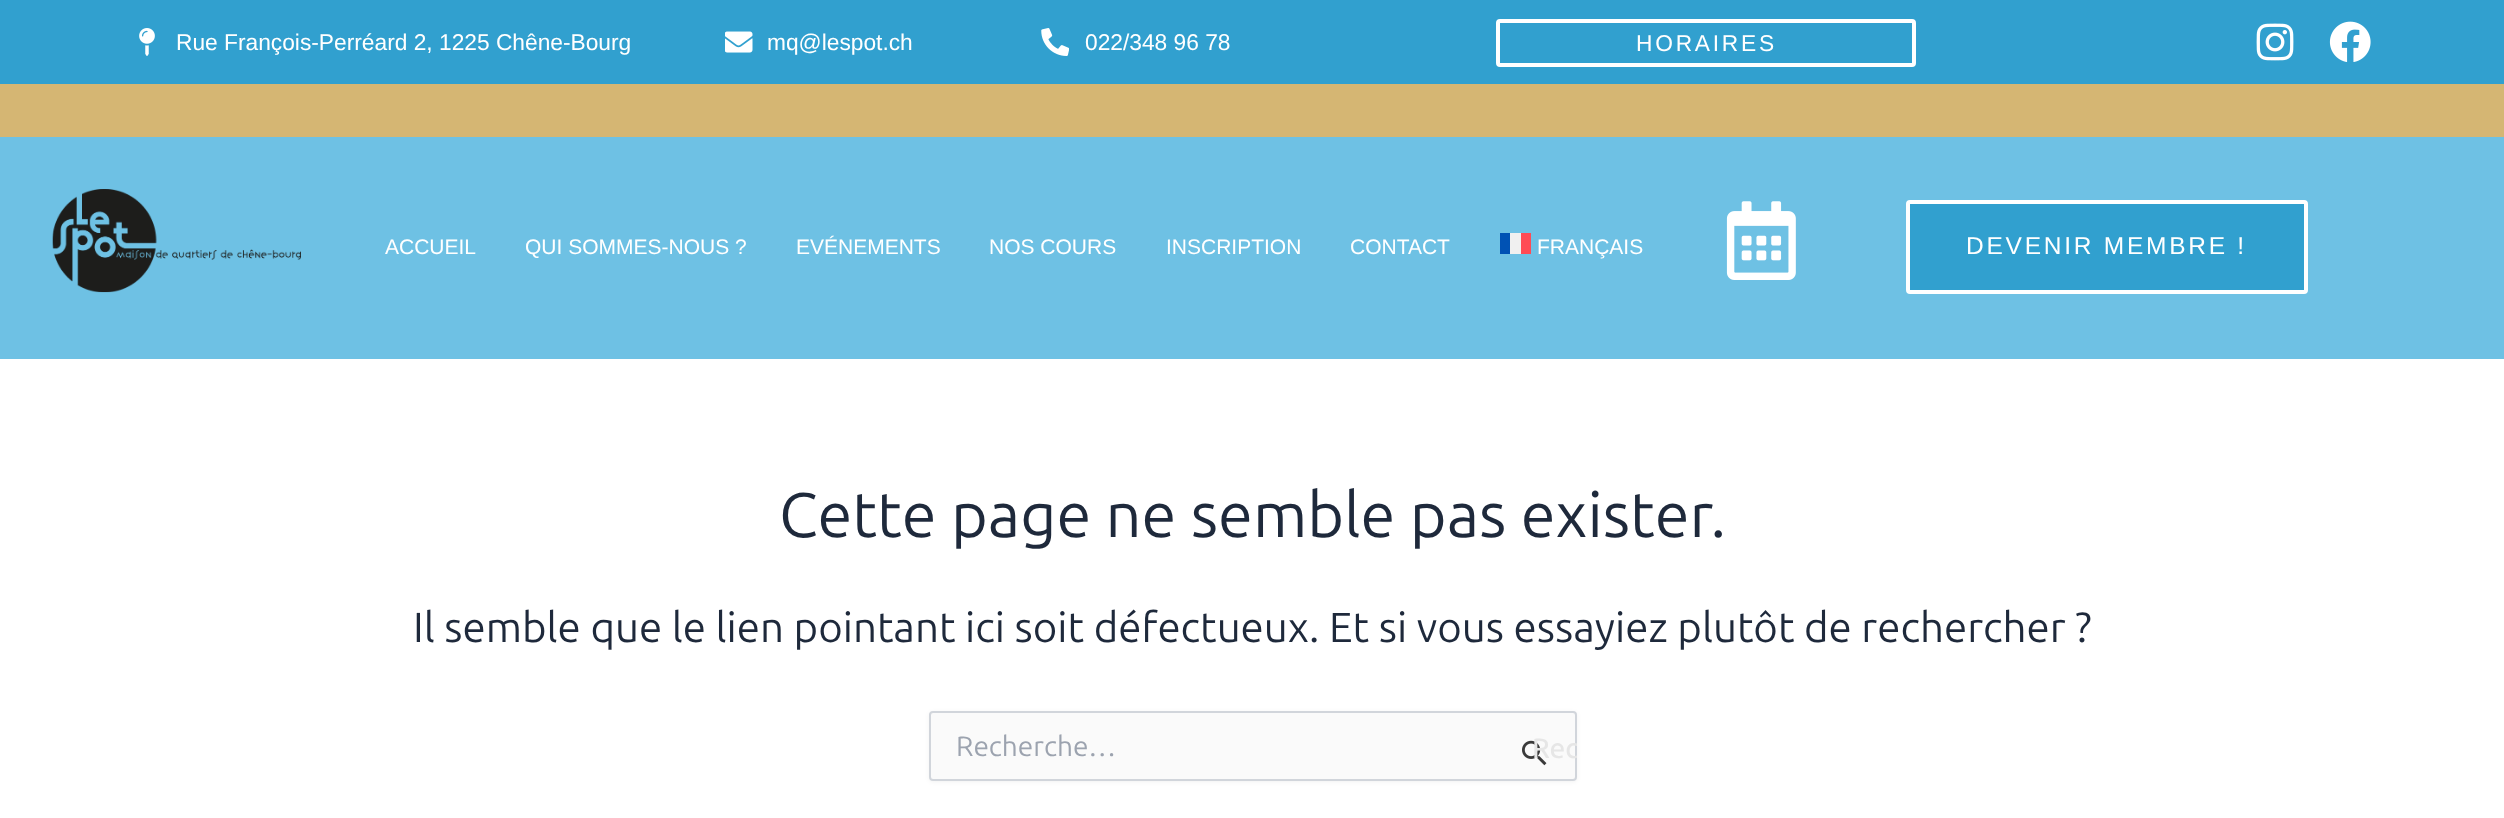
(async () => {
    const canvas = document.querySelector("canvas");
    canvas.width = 2504;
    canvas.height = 818;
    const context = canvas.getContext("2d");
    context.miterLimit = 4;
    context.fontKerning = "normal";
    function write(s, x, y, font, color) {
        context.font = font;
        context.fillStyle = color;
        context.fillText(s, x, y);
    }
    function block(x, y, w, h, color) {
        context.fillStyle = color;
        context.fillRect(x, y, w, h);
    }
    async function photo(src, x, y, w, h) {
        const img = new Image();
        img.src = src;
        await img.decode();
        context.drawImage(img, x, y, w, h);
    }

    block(0, 0, 2504, 818, "rgb(255, 255, 255)");
    block(0, 0, 2504, 84, "rgb(49, 160, 207)");
    await photo("media/1.png", 139, 28, 16, 28);
    write("Rue François-Perréard 2, 1225 Chêne-Bourg", 176, 50, "22.75px Liberation Sans", "rgb(255, 255, 255)");
    await photo("media/2.png", 725, 31, 28, 22);
    write("mq@lespot.ch", 767, 50, "22.75px Liberation Sans", "rgb(255, 255, 255)");
    await photo("media/3.png", 1041, 28, 28, 28);
    write("022/348 96 78", 1085, 50, "22.75px Liberation Sans", "rgb(255, 255, 255)");
    context.beginPath();
    context.roundRect(1498, 21, 416, 44, 2);
    context.strokeStyle = "rgb(255, 255, 255)";
    context.lineWidth = 4;
    context.stroke();
    context.letterSpacing = "2.75px";
    write("HORAIRES", 1636, 51, "22.75px Liberation Sans", "rgb(255, 255, 255)");
    await photo("media/4.png", 2256, 23, 38, 38);
    await photo("media/5.png", 2329, 21, 42, 41);
    block(0, 84, 2504, 53, "rgb(213, 182, 115)");
    block(0, 137, 2504, 222, "rgb(110, 193, 228)");
    await photo("media/6.png", 52, 189, 249, 104);
    context.letterSpacing = "0px";
    write("ACCUEIL", 385, 254, "21px Liberation Sans", "rgb(255, 255, 255)");
    write("QUI SOMMES-NOUS ?", 525, 254, "21px Liberation Sans", "rgb(255, 255, 255)");
    write("EVÉNEMENTS", 796, 254, "21px Liberation Sans", "rgb(255, 255, 255)");
    write("NOS COURS", 989, 254, "21px Liberation Sans", "rgb(255, 255, 255)");
    write("INSCRIPTION", 1166, 254, "21px Liberation Sans", "rgb(255, 255, 255)");
    write("CONTACT", 1350, 254, "21px Liberation Sans", "rgb(255, 255, 255)");
    block(1500, 233, 10, 21, "rgb(0, 82, 180)");
    block(1510, 233, 11, 21, "rgb(240, 240, 240)");
    block(1521, 233, 10, 21, "rgb(255, 75, 85)");
    write("FRANÇAIS", 1537, 254, "21px Liberation Sans", "rgb(255, 255, 255)");
    await photo("media/7.png", 1726, 201, 70, 79);
    context.fillStyle = "rgb(49, 160, 207)";
    context.beginPath();
    context.roundRect(1908, 202, 398, 90, 2);
    context.fill();
    context.stroke();
    context.letterSpacing = "2.75px";
    write("DEVENIR MEMBRE !", 1966, 254, "24.5px Liberation Sans", "rgb(255, 255, 255)");
    context.letterSpacing = "0px";
    write("Cette page ne semble pas exister.", 779, 537, "63px Ubuntu", "rgb(30, 41, 59)");
    write("Il semble que le lien pointant ici soit défectueux. Et si vous essayiez plutôt de rechercher ?", 413, 642, "42px Ubuntu", "rgb(30, 41, 59)");
    context.fillStyle = "rgba(0, 0, 0, 0.05)";
    context.filter = "blur(2px)";
    context.beginPath();
    context.roundRect(929, 712, 648, 70, 4);
    context.fill();
    context.filter = "none";
    context.fillStyle = "rgb(250, 250, 250)";
    context.beginPath();
    context.roundRect(930, 712, 646, 68, 3);
    context.fill();
    context.strokeStyle = "rgb(209, 213, 219)";
    context.lineWidth = 2;
    context.stroke();
    write("Recherche…", 956, 756, "28px Ubuntu", "rgb(156, 163, 175)");
    await photo("media/8.png", 1522, 740, 25, 26);
    context.save();
    context.beginPath();
    context.roundRect(1498, 711, 79, 73, 4);
    context.clip();
    write("Rec", 1532, 758, "500 28px Ubuntu", "rgb(230, 230, 230)");
    context.restore();
})();
